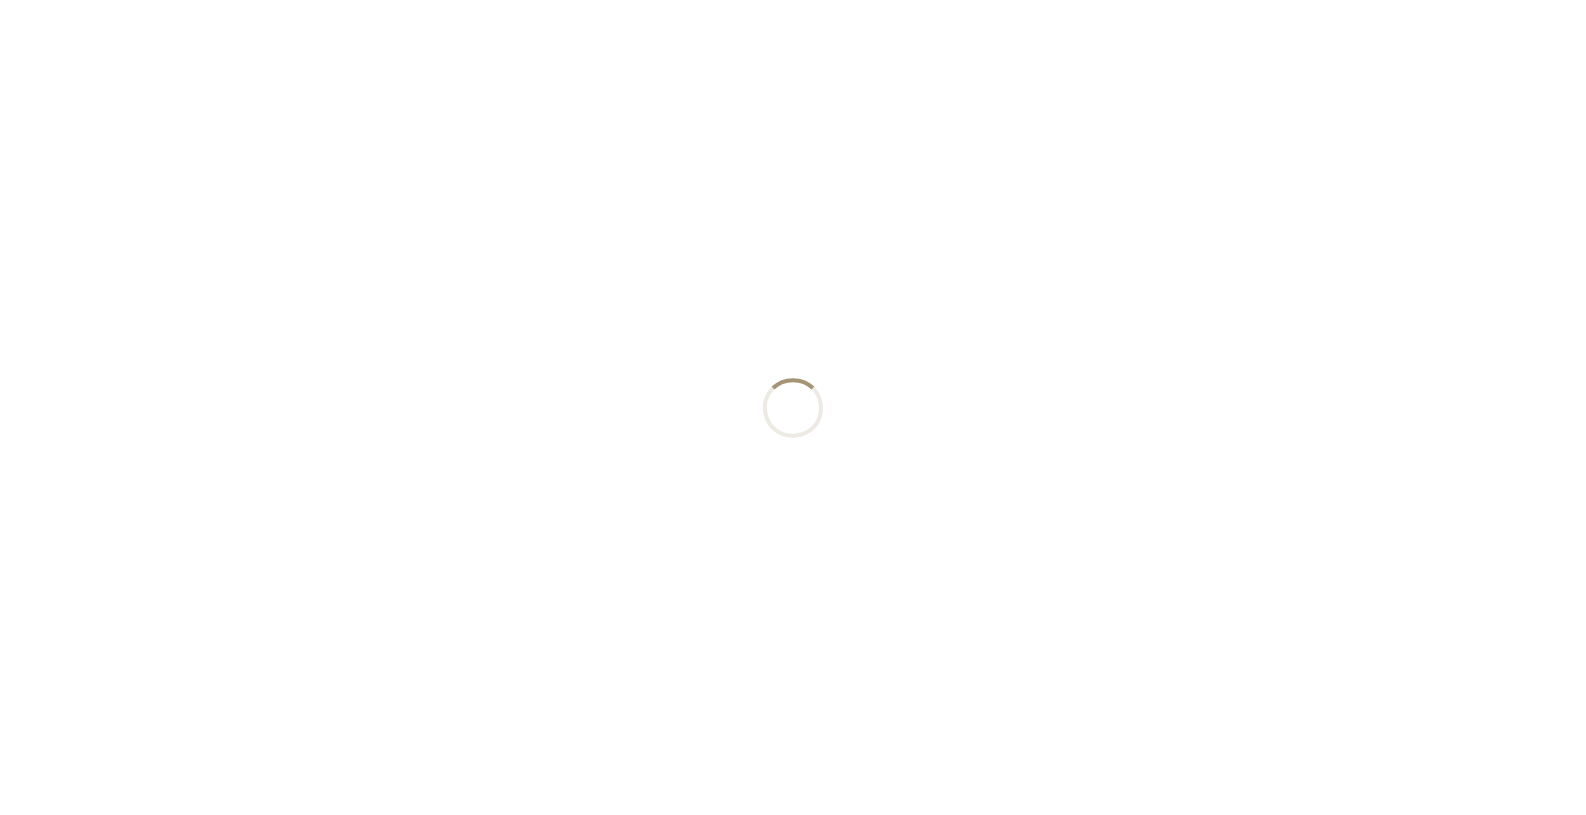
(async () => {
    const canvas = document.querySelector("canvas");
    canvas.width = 1586;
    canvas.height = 815;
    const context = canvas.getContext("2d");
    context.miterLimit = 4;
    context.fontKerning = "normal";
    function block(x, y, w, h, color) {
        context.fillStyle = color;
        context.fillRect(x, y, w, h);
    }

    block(0, 0, 1586, 815, "rgb(255, 255, 255)");
    context.beginPath();
    context.moveTo(773, 388);
    context.bezierCurveTo(784, 377.5, 802, 377.5, 813, 388);
    context.strokeStyle = "rgb(166, 148, 118)";
    context.lineWidth = 4;
    context.stroke();
    context.beginPath();
    context.moveTo(813, 388);
    context.bezierCurveTo(818, 393.5, 821, 400.5, 821, 408);
    context.bezierCurveTo(821, 441.5, 772, 446, 765.5, 413.5);
    context.bezierCurveTo(763.5, 404.5, 766.5, 395, 773, 388);
    context.strokeStyle = "rgba(166, 148, 118, 0.2)";
    context.stroke();
})();
